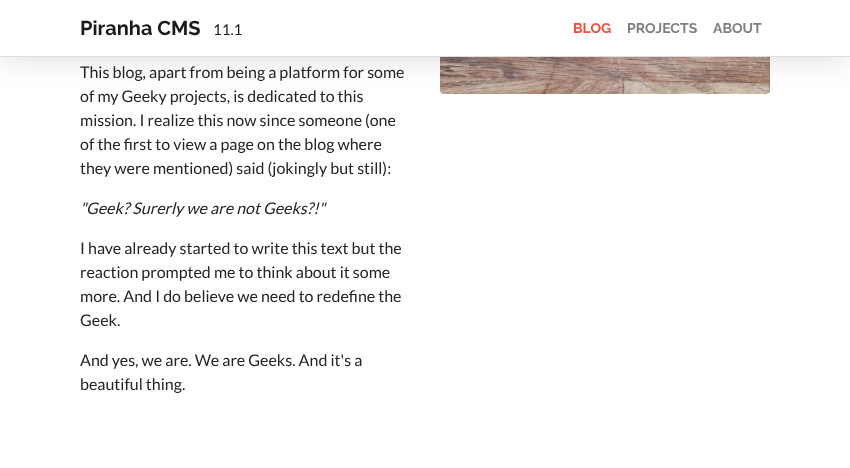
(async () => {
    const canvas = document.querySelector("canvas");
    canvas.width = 850;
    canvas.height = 468;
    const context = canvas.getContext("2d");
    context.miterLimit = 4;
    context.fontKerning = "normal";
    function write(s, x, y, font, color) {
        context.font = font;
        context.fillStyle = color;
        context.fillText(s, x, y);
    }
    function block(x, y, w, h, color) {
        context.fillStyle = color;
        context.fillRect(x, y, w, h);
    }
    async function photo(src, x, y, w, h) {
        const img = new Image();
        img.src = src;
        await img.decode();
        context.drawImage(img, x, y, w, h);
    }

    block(0, 0, 850, 468, "rgb(255, 255, 255)");
    await photo("media/1.png", 440, 57, 330, 37);
    context.fillStyle = "rgba(0, 0, 0, 0.15)";
    context.filter = "blur(16px)";
    context.beginPath();
    context.rect(0, 0, 850, 57);
    context.fill();
    context.filter = "none";
    block(0, 0, 850, 56, "rgb(255, 255, 255)");
    block(0, 56, 850, 1, "rgb(221, 221, 221)");
    write("Piranha CMS", 80, 35, "100 20px Raleway", "rgb(26, 26, 26)");
    write("11.1", 213, 35, "15px Lato", "rgb(26, 26, 26)");
    write("BLOG", 573, 33, "100 14px Raleway", "rgb(249, 76, 59)");
    write("PROJECTS", 627, 33, "100 14px Raleway", "rgb(128, 128, 128)");
    write("ABOUT", 713, 33, "100 14px Raleway", "rgb(128, 128, 128)");
    write("This blog, apart from being a platform for some", 80, 78, "16px Lato", "rgb(33, 37, 41)");
    write("of my Geeky projects, is dedicated to this", 80, 102, "16px Lato", "rgb(33, 37, 41)");
    write("mission. I realize this now since someone (one", 80, 126, "16px Lato", "rgb(33, 37, 41)");
    write("of the first to view a page on the blog where", 80, 150, "16px Lato", "rgb(33, 37, 41)");
    write("they were mentioned) said (jokingly but still):", 80, 174, "16px Lato", "rgb(33, 37, 41)");
    write("\"Geek? Surerly we are not Geeks?!\"", 80, 214, "italic 16px Lato", "rgb(33, 37, 41)");
    write("I have already started to write this text but the", 80, 254, "16px Lato", "rgb(33, 37, 41)");
    write("reaction prompted me to think about it some", 80, 278, "16px Lato", "rgb(33, 37, 41)");
    write("more. And I do believe we need to redefine the", 80, 302, "16px Lato", "rgb(33, 37, 41)");
    write("Geek.", 80, 326, "16px Lato", "rgb(33, 37, 41)");
    write("And yes, we are. We are Geeks. And it's a", 80, 366, "16px Lato", "rgb(33, 37, 41)");
    write("beautiful thing.", 80, 390, "16px Lato", "rgb(33, 37, 41)");
})();
